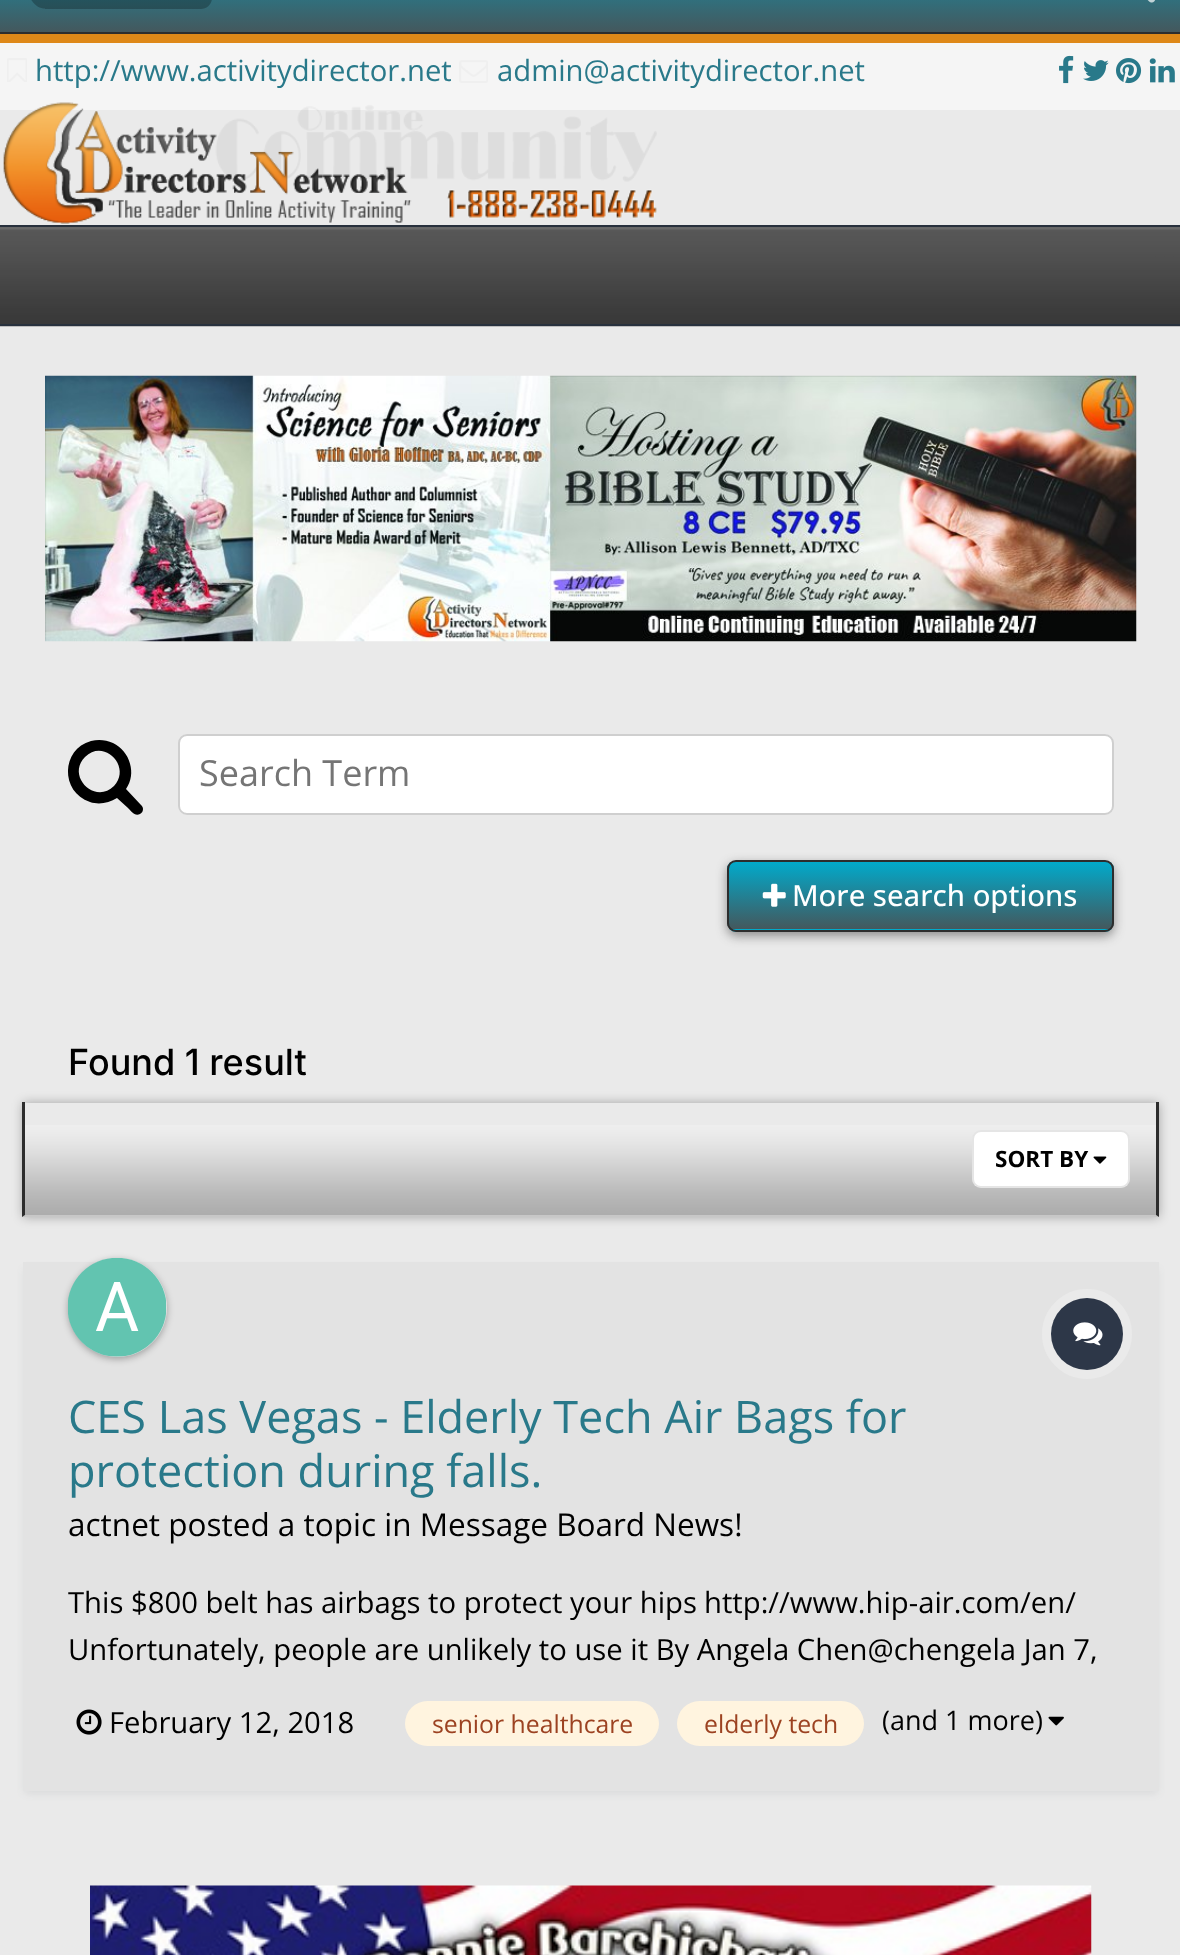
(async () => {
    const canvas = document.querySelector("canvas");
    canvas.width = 1180;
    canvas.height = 1955;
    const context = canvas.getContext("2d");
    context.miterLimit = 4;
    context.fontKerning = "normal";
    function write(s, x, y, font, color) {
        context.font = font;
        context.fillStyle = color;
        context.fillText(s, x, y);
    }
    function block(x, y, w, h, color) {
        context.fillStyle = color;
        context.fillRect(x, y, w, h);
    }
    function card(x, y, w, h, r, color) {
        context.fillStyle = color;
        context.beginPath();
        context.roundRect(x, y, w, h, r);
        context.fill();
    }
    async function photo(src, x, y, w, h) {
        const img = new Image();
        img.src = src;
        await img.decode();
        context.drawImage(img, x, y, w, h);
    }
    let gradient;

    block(0, 0, 1180, 1955, "rgb(234, 234, 234)");
    gradient = context.createLinearGradient(591, -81, 591, 32);
    gradient.addColorStop(0, "rgb(1, 170, 203)");
    gradient.addColorStop(1, "rgb(68, 88, 93)");
    context.fillStyle = gradient;
    context.fillRect(0, 0, 1180, 32);
    block(0, 32, 1180, 2, "rgb(45, 45, 45)");
    context.fillStyle = "rgba(0, 0, 0, 0.25)";
    context.beginPath();
    context.moveTo(45, -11);
    context.lineTo(201, -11);
    context.bezierCurveTo(207, -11, 212, -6, 212, 0);
    context.lineTo(212, -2);
    context.bezierCurveTo(212, 4, 207, 9, 201, 9);
    context.lineTo(45, 9);
    context.closePath();
    context.fill();
    context.beginPath();
    context.moveTo(16.5, -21);
    context.lineTo(15.5, -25);
    context.lineTo(45, -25);
    context.lineTo(45, 8.5);
    context.bezierCurveTo(40, 8.5, 35.5, 6, 32, 1);
    context.closePath();
    context.fill();
    await photo("media/1.png", 1147, 0, 8, 3);
    block(0, 43, 1180, 67, "rgb(245, 245, 245)");
    block(0, 34, 1180, 9, "rgb(222, 136, 24)");
    await photo("media/2.png", 7, 58, 20, 24);
    write("http://www.activitydirector.net", 35, 81, "29.25px Open Sans", "rgb(41, 121, 138)");
    await photo("media/3.png", 459, 60, 29, 23);
    write("admin@activitydirector.net", 497, 81, "29.25px Open Sans", "rgb(41, 121, 138)");
    await photo("media/4.png", 1059, 55, 15, 29);
    await photo("media/5.png", 1083, 60, 26, 21);
    await photo("media/6.png", 1116, 58, 26, 26);
    await photo("media/7.png", 1149, 58, 26, 25);
    await photo("media/8.png", 3, 102, 654, 122);
    await photo("media/9.png", 0, 227, 1180, 1);
    await photo("media/10.png", 0, 227, 1180, 100);
    block(0, 225, 1180, 2, "rgb(40, 49, 61)");
    block(0, 324, 1180, 2, "rgb(40, 49, 61)");
    await photo("media/11.png", 45, 375, 1092, 267);
    context.fillStyle = "rgb(0, 0, 0)";
    context.beginPath();
    context.moveTo(114, 786);
    context.bezierCurveTo(132, 767, 104, 738, 85, 757);
    context.bezierCurveTo(66, 776, 95, 805, 114, 786);
    context.closePath();
    context.moveTo(143, 809);
    context.bezierCurveTo(143, 811, 142, 813, 140, 814);
    context.bezierCurveTo(135, 817, 131, 811, 128, 808);
    context.lineTo(117, 798);
    context.bezierCurveTo(109, 803, 99, 805, 90, 802);
    context.bezierCurveTo(60, 792, 61, 749, 91, 741);
    context.bezierCurveTo(99, 739, 106, 740, 113, 743);
    context.bezierCurveTo(130, 751, 137, 774, 126, 789);
    context.lineTo(141, 805);
    context.bezierCurveTo(142, 806, 143, 807, 143, 809);
    context.closePath();
    context.fill();
    card(178, 734, 936, 81, 9, "rgb(255, 255, 255)");
    context.beginPath();
    context.roundRect(179, 735, 934, 79, 8);
    context.strokeStyle = "rgba(136, 136, 136, 0.4)";
    context.lineWidth = 2;
    context.stroke();
    write("Search Term", 199, 786, "36px Open Sans", "rgb(117, 117, 117)");
    context.fillStyle = "rgba(45, 45, 45, 0.5)";
    context.filter = "blur(5.5px)";
    context.beginPath();
    context.roundRect(727, 864, 387, 72, 9);
    context.fill();
    context.filter = "none";
    context.save();
    context.beginPath();
    context.roundRect(727, 860, 387, 72, 9);
    context.clip();
    gradient = context.createLinearGradient(920, 862, 920, 929);
    gradient.addColorStop(0, "rgb(1, 170, 203)");
    gradient.addColorStop(1, "rgb(68, 88, 93)");
    context.fillStyle = gradient;
    context.fillRect(727, 862, 387, 67);
    gradient = context.createLinearGradient(920, 929, 920, 997);
    gradient.addColorStop(0, "rgb(1, 170, 203)");
    gradient.addColorStop(1, "rgb(68, 88, 93)");
    context.fillStyle = gradient;
    context.fillRect(727, 929, 387, 3);
    context.restore();
    context.beginPath();
    context.roundRect(728, 861, 385, 70, 8);
    context.strokeStyle = "rgb(45, 45, 45)";
    context.stroke();
    await photo("media/12.png", 762, 883, 24, 24);
    write("More search options", 792, 906, "500 29.25px Open Sans", "rgb(255, 255, 255)");
    write("Found 1 result", 68, 1075, "500 36px Inter", "rgb(0, 0, 0)");
    context.save();
    context.beginPath();
    context.moveTo(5, 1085);
    context.lineTo(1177, 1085);
    context.lineTo(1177, 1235);
    context.lineTo(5, 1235);
    context.closePath();
    context.moveTo(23, 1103);
    context.lineTo(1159, 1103);
    context.lineTo(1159, 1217);
    context.lineTo(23, 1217);
    context.closePath();
    context.clip("evenodd");
    context.fillStyle = "rgba(0, 0, 0, 0.3)";
    context.filter = "blur(5.5px)";
    context.beginPath();
    context.rect(23, 1103, 1136, 114);
    context.fill();
    context.filter = "none";
    context.restore();
    await photo("media/13.png", 25, 1125, 1131, 90);
    context.fillStyle = "rgb(45, 45, 45)";
    context.beginPath();
    context.moveTo(1159, 1102);
    context.lineTo(1159, 1217);
    context.lineTo(1156, 1215);
    context.lineTo(1156, 1102);
    context.closePath();
    context.fill();
    context.fillStyle = "rgba(0, 0, 0, 0.15)";
    context.beginPath();
    context.moveTo(1159, 1217);
    context.lineTo(22, 1217);
    context.lineTo(25, 1215);
    context.lineTo(1156, 1215);
    context.closePath();
    context.fill();
    context.fillStyle = "rgb(45, 45, 45)";
    context.beginPath();
    context.moveTo(22, 1217);
    context.lineTo(22, 1102);
    context.lineTo(25, 1102);
    context.lineTo(25, 1215);
    context.closePath();
    context.fill();
    card(972, 1130, 158, 58, 9, "rgb(255, 255, 255)");
    await photo("media/14.png", 1093, 1156, 14, 8);
    context.beginPath();
    context.roundRect(973, 1131, 156, 56, 8);
    context.strokeStyle = "rgba(0, 0, 0, 0.1)";
    context.stroke();
    write("SORT BY", 995, 1167, "bold 22.5px Open Sans", "rgb(0, 0, 0)");
    context.fillStyle = "rgba(45, 55, 72, 0.1)";
    context.filter = "blur(4.5px)";
    context.beginPath();
    context.rect(25, 1269, 1132, 524);
    context.fill();
    context.filter = "none";
    block(23, 1262, 1136, 529, "rgb(227, 227, 227)");
    context.fillStyle = "rgba(0, 0, 0, 0.3)";
    context.filter = "blur(3.5px)";
    context.beginPath();
    context.roundRect(68, 1260, 99, 99, 49.5);
    context.fill();
    context.filter = "none";
    gradient = context.createLinearGradient(68, 1258, 68, 1357);
    gradient.addColorStop(0, "rgb(242, 242, 242)");
    gradient.addColorStop(1, "rgb(221, 221, 221)");
    context.fillStyle = gradient;
    context.beginPath();
    context.arc(117.5, 1307.5, 49.5, 0, Math.PI * 2);
    context.fill();
    await photo("media/15.png", 68, 1258, 99, 99);
    context.beginPath();
    context.arc(1087, 1334, 40.5, 0, Math.PI * 2);
    context.strokeStyle = "rgb(234, 234, 234)";
    context.lineWidth = 9;
    context.stroke();
    context.fillStyle = "rgb(45, 55, 72)";
    context.beginPath();
    context.arc(1087, 1334, 36, 0, Math.PI * 2);
    context.fill();
    await photo("media/16.png", 1073, 1322, 30, 24);
    write("CES Las Vegas - Elderly Tech Air Bags for", 68, 1433, "45px Open Sans", "rgb(41, 121, 138)");
    write("protection during falls.", 68, 1487, "45px Open Sans", "rgb(41, 121, 138)");
    write("actnet posted a topic in Message Board News!", 68, 1536, "31.5px Open Sans", "rgb(0, 0, 0)");
    context.save();
    context.beginPath();
    context.rect(68, 1580, 1046, 87);
    context.clip();
    write("This $800 belt has airbags to protect your hips", 68, 1613, "29.25px Open Sans", "rgb(0, 0, 0)");
    context.restore();
    write("http://www.hip-air.com/en/", 704, 1613, "29.25px Open Sans", "rgb(0, 0, 0)");
    write("Unfortunately, people are unlikely to use it By Angela Chen@chengela Jan 7,", 68, 1660, "29.25px Open Sans", "rgb(0, 0, 0)");
    await photo("media/17.png", 76, 1709, 26, 26);
    write("February 12, 2018", 109, 1733, "29.25px Open Sans", "rgb(0, 0, 0)");
    card(405, 1701, 254, 45, 22.5, "rgb(255, 244, 223)");
    write("senior healthcare", 432, 1733, "24.75px Open Sans", "rgb(156, 66, 33)");
    card(677, 1701, 187, 45, 22.5, "rgb(255, 244, 223)");
    write("elderly tech", 704, 1733, "24.75px Open Sans", "rgb(156, 66, 33)");
    write("(and 1 more)", 882, 1730, "27px Open Sans", "rgb(0, 0, 0)");
    await photo("media/18.png", 1048, 1716, 16, 10);
    await photo("media/19.png", 90, 1885, 1002, 70);
})();
